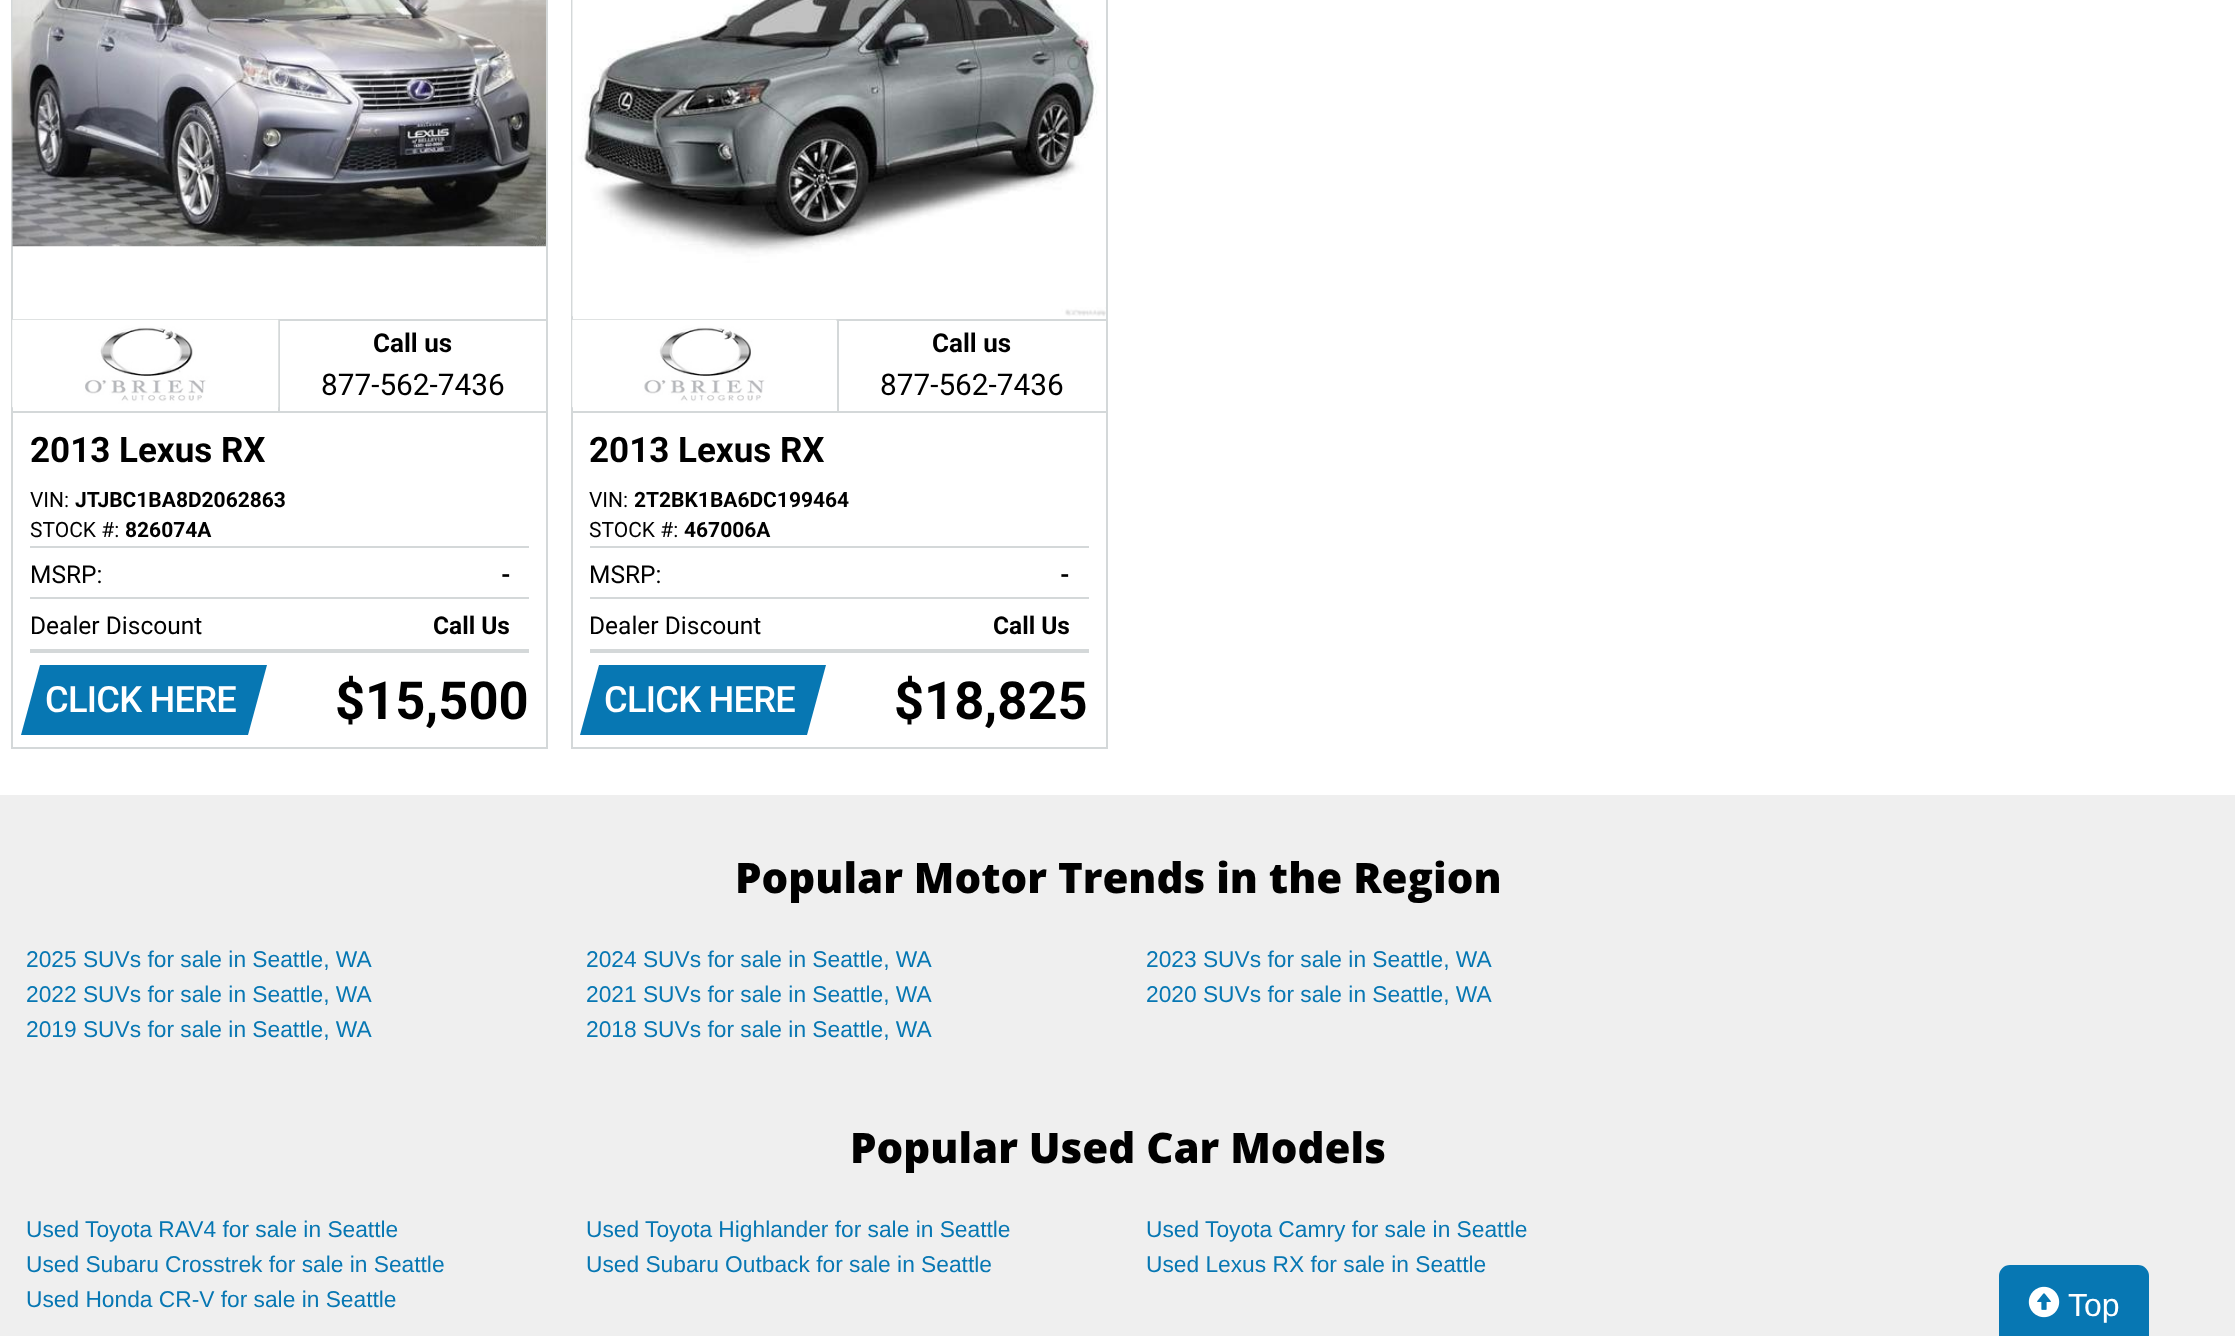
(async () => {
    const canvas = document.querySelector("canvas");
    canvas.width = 2235;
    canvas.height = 1336;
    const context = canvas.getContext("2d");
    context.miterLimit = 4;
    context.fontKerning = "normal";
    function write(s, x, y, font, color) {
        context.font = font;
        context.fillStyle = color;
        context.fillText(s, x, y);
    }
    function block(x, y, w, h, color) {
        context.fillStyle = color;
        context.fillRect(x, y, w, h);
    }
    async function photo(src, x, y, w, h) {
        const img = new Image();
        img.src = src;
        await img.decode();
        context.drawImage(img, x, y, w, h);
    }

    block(0, 0, 2235, 1336, "rgb(255, 255, 255)");
    context.strokeStyle = "rgb(212, 216, 217)";
    context.lineWidth = 2;
    context.strokeRect(12, -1, 535, 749);
    await photo("media/1.png", 12, 0, 534, 247);
    block(12, 319, 534, 2, "rgb(212, 216, 217)");
    block(278, 319, 2, 94, "rgb(212, 216, 217)");
    block(12, 411, 534, 2, "rgb(212, 216, 217)");
    await photo("media/2.png", 12, 319, 267, 89);
    write("Call us", 373, 352, "bold 26px Roboto", "rgb(0, 0, 0)");
    write("877-562-7436", 321, 395, "29.75px Roboto", "rgb(0, 0, 0)");
    write("2013 Lexus RX", 30, 462, "bold 35px Roboto", "rgb(0, 0, 0)");
    write("VIN:", 30, 507, "21px Roboto", "rgb(0, 0, 0)");
    write("JTJBC1BA8D2062863", 75, 507, "bold 21px Roboto", "rgb(0, 0, 0)");
    write("STOCK #:", 30, 537, "21px Roboto", "rgb(0, 0, 0)");
    write("826074A", 125, 537, "bold 21px Roboto", "rgb(0, 0, 0)");
    block(30, 546, 499, 2, "rgb(212, 216, 217)");
    block(30, 597, 499, 2, "rgb(212, 216, 217)");
    write("MSRP:", 30, 583, "24.5px Roboto", "rgb(0, 0, 0)");
    write("-", 501, 583, "bold 24.5px Roboto", "rgb(0, 0, 0)");
    block(30, 649, 499, 4, "rgb(212, 216, 217)");
    write("Dealer Discount", 30, 634, "24.5px Roboto", "rgb(0, 0, 0)");
    write("Call Us", 433, 634, "bold 24.5px Roboto", "rgb(0, 0, 0)");
    context.fillStyle = "rgb(7, 119, 179)";
    context.beginPath();
    context.moveTo(40, 665);
    context.lineTo(267, 665);
    context.lineTo(248, 735);
    context.lineTo(21, 735);
    context.closePath();
    context.fill();
    context.letterSpacing = "-0.75px";
    write("CLICK HERE", 45, 712, "500 36.25px Roboto", "rgb(255, 255, 255)");
    context.letterSpacing = "0px";
    write("$15,500", 335, 719, "bold 52.5px Roboto", "rgb(0, 0, 0)");
    context.strokeRect(572, -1, 535, 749);
    await photo("media/3.png", 572, 0, 534, 317);
    block(572, 319, 266, 2, "rgb(212, 216, 217)");
    block(837, 319, 2, 94, "rgb(212, 216, 217)");
    block(572, 411, 534, 2, "rgb(212, 216, 217)");
    await photo("media/4.png", 572, 319, 265, 89);
    block(838, 319, 268, 2, "rgb(212, 216, 217)");
    write("Call us", 932, 352, "bold 26px Roboto", "rgb(0, 0, 0)");
    write("877-562-7436", 880, 395, "29.75px Roboto", "rgb(0, 0, 0)");
    write("2013 Lexus RX", 589, 462, "bold 35px Roboto", "rgb(0, 0, 0)");
    write("VIN:", 589, 507, "21px Roboto", "rgb(0, 0, 0)");
    write("2T2BK1BA6DC199464", 634, 507, "bold 21px Roboto", "rgb(0, 0, 0)");
    write("STOCK #:", 589, 537, "21px Roboto", "rgb(0, 0, 0)");
    write("467006A", 684, 537, "bold 21px Roboto", "rgb(0, 0, 0)");
    block(590, 546, 499, 2, "rgb(212, 216, 217)");
    block(590, 597, 499, 2, "rgb(212, 216, 217)");
    write("MSRP:", 589, 583, "24.5px Roboto", "rgb(0, 0, 0)");
    write("-", 1060, 583, "bold 24.5px Roboto", "rgb(0, 0, 0)");
    block(590, 649, 499, 4, "rgb(212, 216, 217)");
    write("Dealer Discount", 589, 634, "24.5px Roboto", "rgb(0, 0, 0)");
    write("Call Us", 993, 634, "bold 24.5px Roboto", "rgb(0, 0, 0)");
    context.fillStyle = "rgb(7, 119, 179)";
    context.beginPath();
    context.moveTo(599, 665);
    context.lineTo(826, 665);
    context.lineTo(807, 735);
    context.lineTo(580, 735);
    context.closePath();
    context.fill();
    context.letterSpacing = "-0.75px";
    write("CLICK HERE", 604, 712, "500 36.25px Roboto", "rgb(255, 255, 255)");
    context.letterSpacing = "0px";
    write("$18,825", 894, 719, "bold 52.5px Roboto", "rgb(0, 0, 0)");
    block(0, 795, 2235, 541, "rgb(239, 239, 239)");
    context.fillStyle = "rgb(7, 119, 179)";
    context.beginPath();
    context.roundRect(2000, 1266, 148, 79, 10);
    context.fill();
    context.strokeStyle = "rgb(7, 119, 179)";
    context.stroke();
    await photo("media/5.png", 2028, 1286, 32, 32);
    write("Top", 2068, 1316, "32px Liberation Sans", "rgb(255, 255, 255)");
    write("Popular Motor Trends in the Region", 735, 893, "800 42px Open Sans", "rgb(0, 0, 0)");
    write("2025 SUVs for sale in Seattle, WA", 26, 967, "22.75px Liberation Sans", "rgb(7, 119, 179)");
    write("2024 SUVs for sale in Seattle, WA", 586, 967, "22.75px Liberation Sans", "rgb(7, 119, 179)");
    write("2023 SUVs for sale in Seattle, WA", 1146, 967, "22.75px Liberation Sans", "rgb(7, 119, 179)");
    write("2022 SUVs for sale in Seattle, WA", 26, 1002, "22.75px Liberation Sans", "rgb(7, 119, 179)");
    write("2021 SUVs for sale in Seattle, WA", 586, 1002, "22.75px Liberation Sans", "rgb(7, 119, 179)");
    write("2020 SUVs for sale in Seattle, WA", 1146, 1002, "22.75px Liberation Sans", "rgb(7, 119, 179)");
    write("2019 SUVs for sale in Seattle, WA", 26, 1037, "22.75px Liberation Sans", "rgb(7, 119, 179)");
    write("2018 SUVs for sale in Seattle, WA", 586, 1037, "22.75px Liberation Sans", "rgb(7, 119, 179)");
    write("Popular Used Car Models", 850, 1163, "800 42px Open Sans", "rgb(0, 0, 0)");
    write("Used Toyota RAV4 for sale in Seattle", 26, 1237, "22.75px Liberation Sans", "rgb(7, 119, 179)");
    write("Used Toyota Highlander for sale in Seattle", 586, 1237, "22.75px Liberation Sans", "rgb(7, 119, 179)");
    write("Used Toyota Camry for sale in Seattle", 1146, 1237, "22.75px Liberation Sans", "rgb(7, 119, 179)");
    write("Used Subaru Crosstrek for sale in Seattle", 26, 1272, "22.75px Liberation Sans", "rgb(7, 119, 179)");
    write("Used Subaru Outback for sale in Seattle", 586, 1272, "22.75px Liberation Sans", "rgb(7, 119, 179)");
    write("Used Lexus RX for sale in Seattle", 1146, 1272, "22.75px Liberation Sans", "rgb(7, 119, 179)");
    write("Used Honda CR-V for sale in Seattle", 26, 1307, "22.75px Liberation Sans", "rgb(7, 119, 179)");
})();
